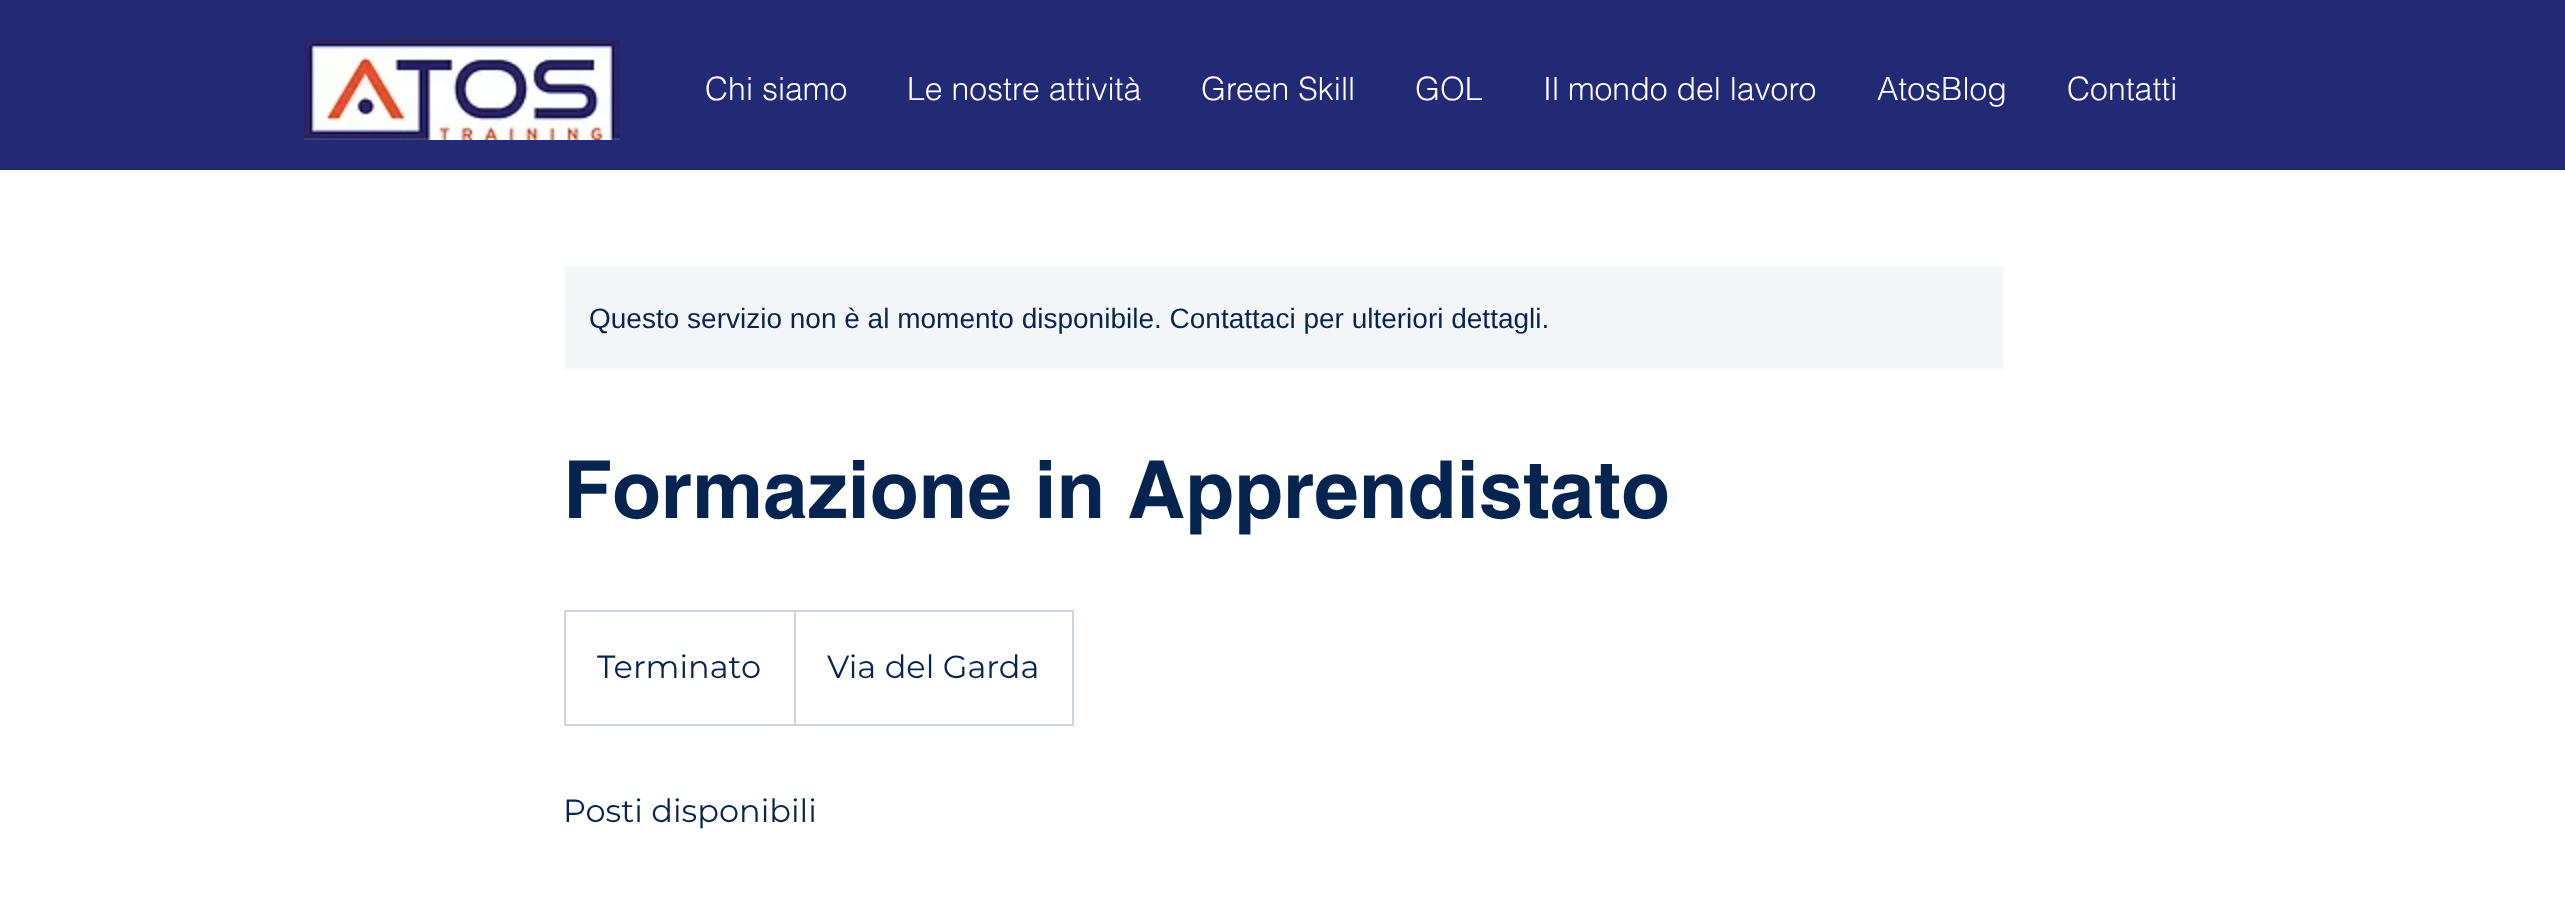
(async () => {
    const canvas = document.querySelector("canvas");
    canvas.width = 2565;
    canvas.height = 910;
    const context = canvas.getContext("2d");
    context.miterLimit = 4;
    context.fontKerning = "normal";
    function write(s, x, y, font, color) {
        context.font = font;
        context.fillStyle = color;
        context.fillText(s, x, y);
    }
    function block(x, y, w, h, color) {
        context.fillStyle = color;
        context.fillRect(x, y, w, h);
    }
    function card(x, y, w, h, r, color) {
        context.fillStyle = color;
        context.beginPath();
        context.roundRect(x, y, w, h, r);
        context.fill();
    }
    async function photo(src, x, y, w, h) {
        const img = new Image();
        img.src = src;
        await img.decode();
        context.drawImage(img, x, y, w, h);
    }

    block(0, 0, 2565, 910, "rgb(255, 255, 255)");
    block(0, 0, 2565, 170, "rgb(35, 42, 117)");
    await photo("media/1.png", 304, 38, 316, 102);
    write("Chi siamo", 705, 100, "300 32px helvetica", "rgb(255, 255, 255)");
    write("Le nostre attività", 907, 100, "300 32px helvetica", "rgb(255, 255, 255)");
    write("Green Skill", 1201, 100, "300 32px helvetica", "rgb(255, 255, 255)");
    write("GOL", 1415, 100, "300 32px helvetica", "rgb(255, 255, 255)");
    write("Il mondo del lavoro", 1543, 100, "300 32px helvetica", "rgb(255, 255, 255)");
    write("AtosBlog", 1877, 100, "300 32px helvetica", "rgb(255, 255, 255)");
    write("Contatti", 2067, 100, "300 32px helvetica", "rgb(255, 255, 255)");
    card(564, 266, 1440, 104, 4, "rgb(243, 245, 247)");
    context.beginPath();
    context.roundRect(565, 267, 1438, 102, 3);
    context.strokeStyle = "rgba(255, 255, 255, 0.4)";
    context.lineWidth = 2;
    context.stroke();
    write("Questo servizio non è al momento disponibile. Contattaci per ulteriori dettagli.", 589, 328, "28px Liberation Sans", "rgb(5, 36, 79)");
    write("Formazione in Apprendistato", 563, 518, "bold 80px helvetica", "rgb(5, 36, 79)");
    context.strokeStyle = "rgb(205, 211, 220)";
    context.strokeRect(565, 611, 508, 114);
    write("Terminato", 597, 678, "32px Montserrat", "rgb(5, 36, 79)");
    context.save();
    context.beginPath();
    context.rect(566, 612, 506, 112);
    context.clip();
    context.fillStyle = "rgb(205, 211, 220)";
    context.beginPath();
    context.moveTo(794, 724);
    context.lineTo(794, 610);
    context.lineTo(796, 612);
    context.lineTo(796, 724);
    context.closePath();
    context.fill();
    context.restore();
    write("Via del Garda", 827, 678, "32px Montserrat", "rgb(5, 36, 79)");
    write("Posti disponibili", 563, 822, "32px Montserrat", "rgb(5, 36, 79)");
})();
